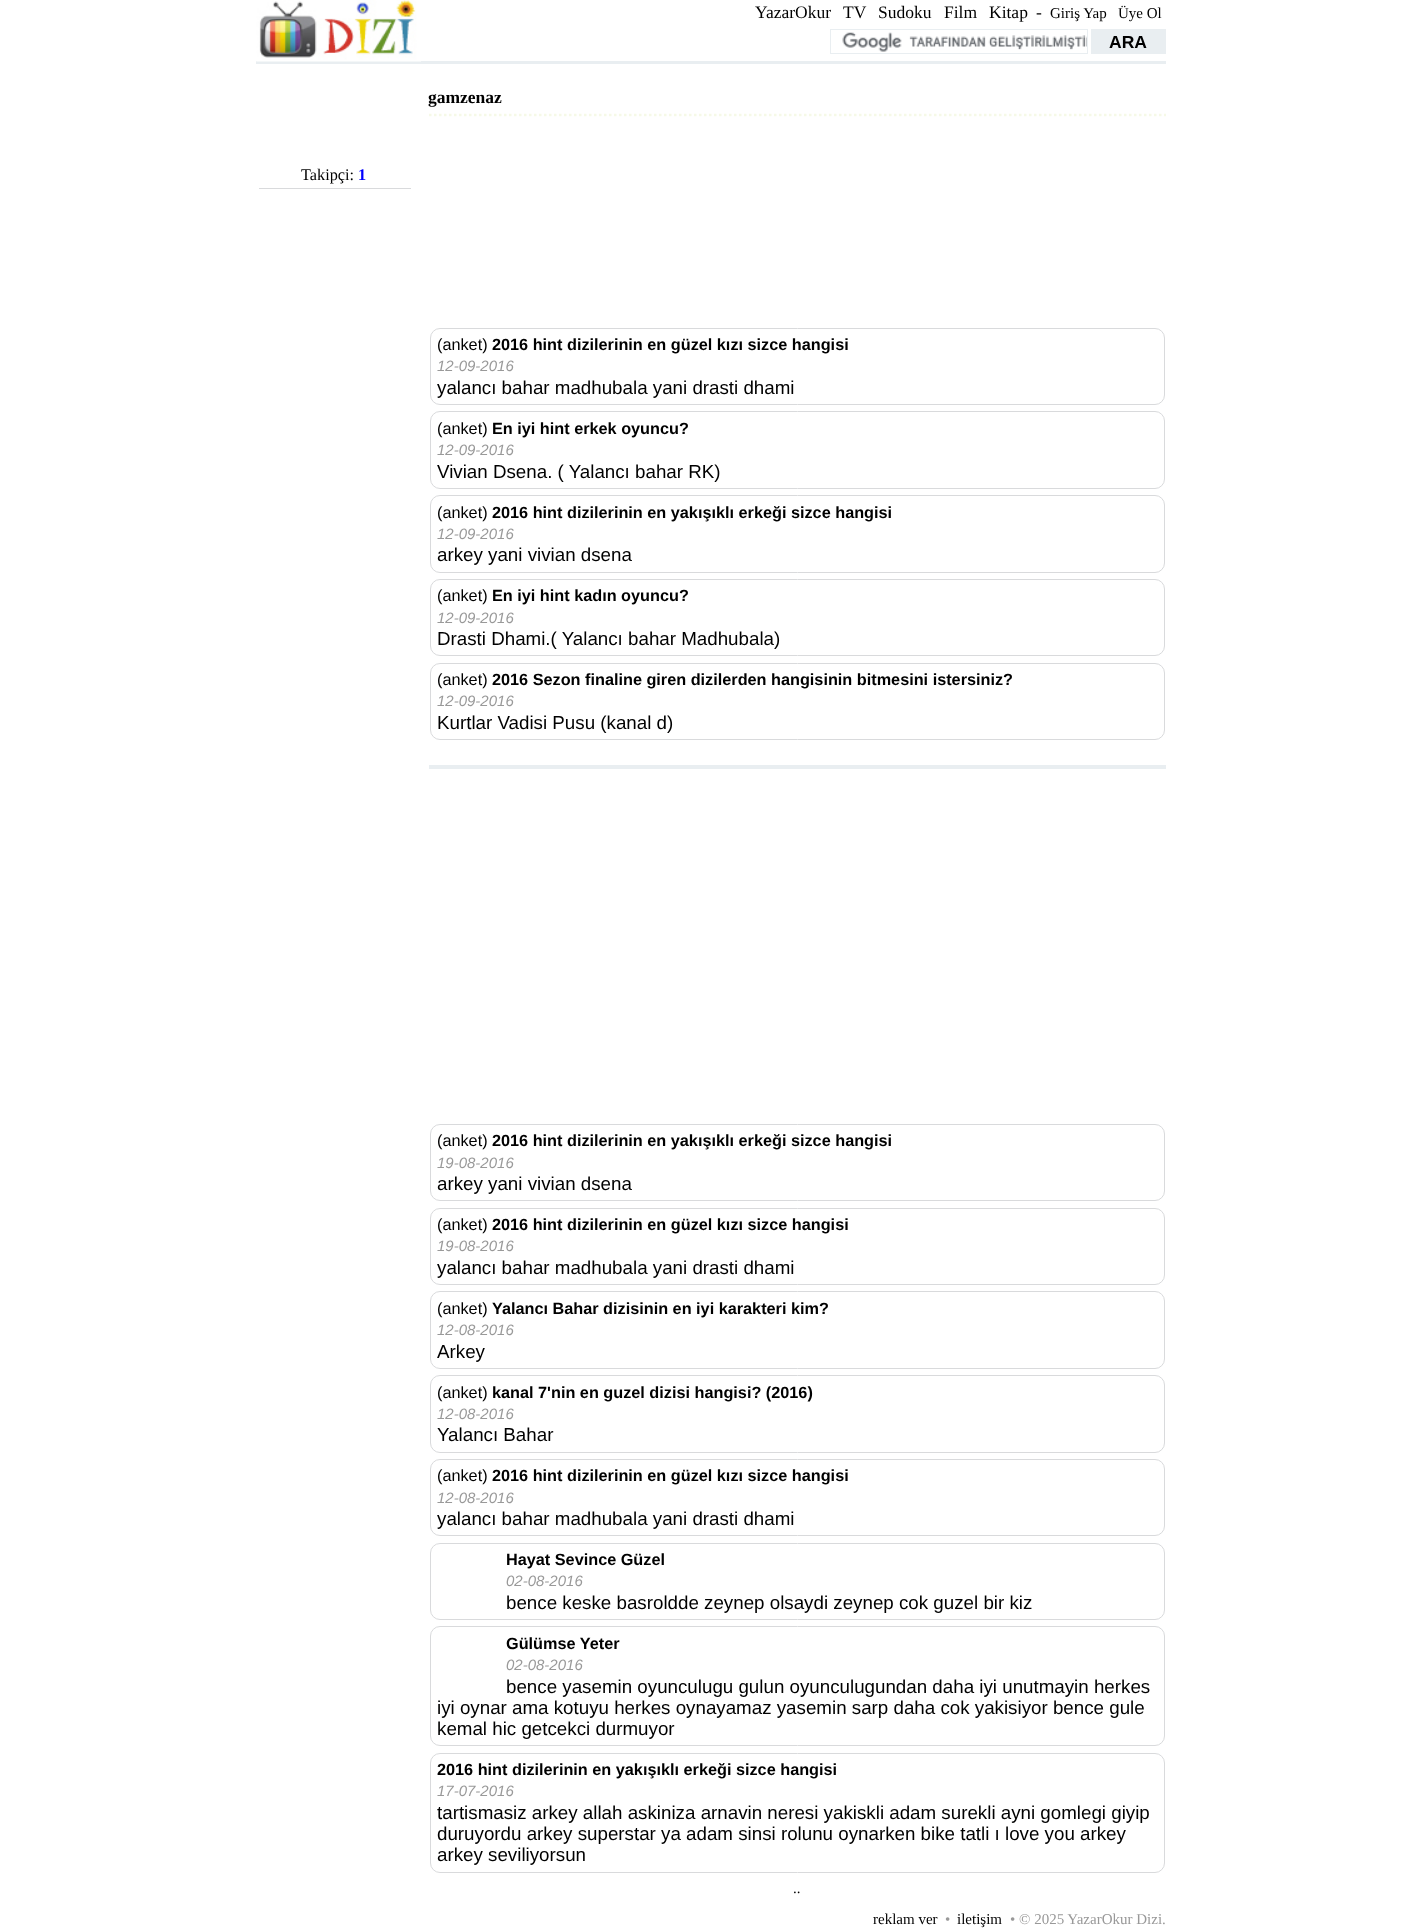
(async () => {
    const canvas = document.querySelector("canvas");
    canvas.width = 1421;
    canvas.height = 1929;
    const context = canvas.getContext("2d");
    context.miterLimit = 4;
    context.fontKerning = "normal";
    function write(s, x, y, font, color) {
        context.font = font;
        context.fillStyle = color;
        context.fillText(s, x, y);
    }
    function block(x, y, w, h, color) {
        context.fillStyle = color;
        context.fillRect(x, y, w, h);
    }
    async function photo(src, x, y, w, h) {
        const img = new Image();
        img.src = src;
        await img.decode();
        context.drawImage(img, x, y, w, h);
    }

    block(0, 0, 1421, 1929, "rgb(255, 255, 255)");
    block(256, 61, 910, 3, "rgb(233, 238, 241)");
    await photo("media/1.png", 256, 0, 165, 62);
    write("YazarOkur", 755, 18, "17.5px Liberation Serif", "rgb(0, 0, 0)");
    write("TV", 843, 18, "17.5px Liberation Serif", "rgb(0, 0, 0)");
    write("Sudoku", 878, 18, "17.5px Liberation Serif", "rgb(0, 0, 0)");
    write("Film", 944, 18, "17.5px Liberation Serif", "rgb(0, 0, 0)");
    write("Kitap", 989, 18, "17.5px Liberation Serif", "rgb(0, 0, 0)");
    write("-", 1036, 18, "17.5px Liberation Serif", "rgb(0, 0, 0)");
    write("Giriş Yap", 1050, 18, "15px Liberation Serif", "rgb(0, 0, 0)");
    write("Üye Ol", 1118, 18, "15px Liberation Serif", "rgb(0, 0, 0)");
    await photo("media/2.png", 842, 32, 245, 20);
    context.strokeStyle = "rgb(233, 238, 241)";
    context.strokeRect(830.5, 29.5, 257, 24);
    block(1091, 29, 75, 25, "rgb(233, 238, 241)");
    write("ARA", 1109, 48, "bold 17.5px Liberation Sans", "rgb(0, 0, 0)");
    block(259, 188, 152, 1, "rgb(217, 218, 220)");
    write("Takipçi:", 301, 180, "16.25px Liberation Serif", "rgb(0, 0, 0)");
    write("1", 358, 180, "bold 16.25px Liberation Serif", "rgb(0, 0, 255)");
    context.beginPath();
    context.moveTo(429, 115);
    context.lineTo(1166, 115);
    context.strokeStyle = "rgb(246, 249, 231)";
    context.lineWidth = 2.5;
    context.setLineDash([2.5, 2.5]);
    context.stroke();
    write("gamzenaz", 428, 103, "bold 17.5px Liberation Serif", "rgb(0, 0, 0)");
    context.beginPath();
    context.roundRect(430.5, 328.5, 734, 76, 9.5);
    context.strokeStyle = "rgb(217, 218, 220)";
    context.lineWidth = 1;
    context.setLineDash([]);
    context.stroke();
    write("(anket)", 437, 350, "16.25px Liberation Sans", "rgb(0, 0, 0)");
    write("2016 hint dizilerinin en güzel kızı sizce hangisi", 492, 350, "bold 16.25px Liberation Sans", "rgb(0, 0, 0)");
    write("12-09-2016", 437, 371, "italic 15px Liberation Sans", "rgb(153, 153, 153)");
    write("yalancı bahar madhubala yani drasti dhami", 437, 394, "18.75px Liberation Sans", "rgb(0, 0, 0)");
    context.beginPath();
    context.roundRect(430.5, 411.5, 734, 77, 9.5);
    context.stroke();
    write("(anket)", 437, 434, "16.25px Liberation Sans", "rgb(0, 0, 0)");
    write("En iyi hint erkek oyuncu?", 492, 434, "bold 16.25px Liberation Sans", "rgb(0, 0, 0)");
    write("12-09-2016", 437, 455, "italic 15px Liberation Sans", "rgb(153, 153, 153)");
    write("Vivian Dsena. ( Yalancı bahar RK)", 437, 478, "18.75px Liberation Sans", "rgb(0, 0, 0)");
    context.beginPath();
    context.roundRect(430.5, 495.5, 734, 77, 9.5);
    context.stroke();
    write("(anket)", 437, 518, "16.25px Liberation Sans", "rgb(0, 0, 0)");
    write("2016 hint dizilerinin en yakışıklı erkeği sizce hangisi", 492, 518, "bold 16.25px Liberation Sans", "rgb(0, 0, 0)");
    write("12-09-2016", 437, 539, "italic 15px Liberation Sans", "rgb(153, 153, 153)");
    write("arkey yani vivian dsena", 437, 561, "18.75px Liberation Sans", "rgb(0, 0, 0)");
    context.beginPath();
    context.roundRect(430.5, 579.5, 734, 76, 9.5);
    context.stroke();
    write("(anket)", 437, 601, "16.25px Liberation Sans", "rgb(0, 0, 0)");
    write("En iyi hint kadın oyuncu?", 492, 601, "bold 16.25px Liberation Sans", "rgb(0, 0, 0)");
    write("12-09-2016", 437, 623, "italic 15px Liberation Sans", "rgb(153, 153, 153)");
    write("Drasti Dhami.( Yalancı bahar Madhubala)", 437, 645, "18.75px Liberation Sans", "rgb(0, 0, 0)");
    context.beginPath();
    context.roundRect(430.5, 663.5, 734, 76, 9.5);
    context.stroke();
    write("(anket)", 437, 685, "16.25px Liberation Sans", "rgb(0, 0, 0)");
    write("2016 Sezon finaline giren dizilerden hangisinin bitmesini istersiniz?", 492, 685, "bold 16.25px Liberation Sans", "rgb(0, 0, 0)");
    write("12-09-2016", 437, 706, "italic 15px Liberation Sans", "rgb(153, 153, 153)");
    write("Kurtlar Vadisi Pusu (kanal d)", 437, 729, "18.75px Liberation Sans", "rgb(0, 0, 0)");
    block(429, 765, 737, 4, "rgb(233, 238, 241)");
    context.beginPath();
    context.roundRect(430.5, 1124.5, 734, 76, 9.5);
    context.stroke();
    write("(anket)", 437, 1146, "16.25px Liberation Sans", "rgb(0, 0, 0)");
    write("2016 hint dizilerinin en yakışıklı erkeği sizce hangisi", 492, 1146, "bold 16.25px Liberation Sans", "rgb(0, 0, 0)");
    write("19-08-2016", 437, 1168, "italic 15px Liberation Sans", "rgb(153, 153, 153)");
    write("arkey yani vivian dsena", 437, 1190, "18.75px Liberation Sans", "rgb(0, 0, 0)");
    context.beginPath();
    context.roundRect(430.5, 1208.5, 734, 76, 9.5);
    context.stroke();
    write("(anket)", 437, 1230, "16.25px Liberation Sans", "rgb(0, 0, 0)");
    write("2016 hint dizilerinin en güzel kızı sizce hangisi", 492, 1230, "bold 16.25px Liberation Sans", "rgb(0, 0, 0)");
    write("19-08-2016", 437, 1251, "italic 15px Liberation Sans", "rgb(153, 153, 153)");
    write("yalancı bahar madhubala yani drasti dhami", 437, 1274, "18.75px Liberation Sans", "rgb(0, 0, 0)");
    context.beginPath();
    context.roundRect(430.5, 1291.5, 734, 77, 9.5);
    context.stroke();
    write("(anket)", 437, 1314, "16.25px Liberation Sans", "rgb(0, 0, 0)");
    write("Yalancı Bahar dizisinin en iyi karakteri kim?", 492, 1314, "bold 16.25px Liberation Sans", "rgb(0, 0, 0)");
    write("12-08-2016", 437, 1335, "italic 15px Liberation Sans", "rgb(153, 153, 153)");
    write("Arkey", 437, 1358, "18.75px Liberation Sans", "rgb(0, 0, 0)");
    context.beginPath();
    context.roundRect(430.5, 1375.5, 734, 77, 9.5);
    context.stroke();
    write("(anket)", 437, 1398, "16.25px Liberation Sans", "rgb(0, 0, 0)");
    write("kanal 7'nin en guzel dizisi hangisi? (2016)", 492, 1398, "bold 16.25px Liberation Sans", "rgb(0, 0, 0)");
    write("12-08-2016", 437, 1419, "italic 15px Liberation Sans", "rgb(153, 153, 153)");
    write("Yalancı Bahar", 437, 1441, "18.75px Liberation Sans", "rgb(0, 0, 0)");
    context.beginPath();
    context.roundRect(430.5, 1459.5, 734, 76, 9.5);
    context.stroke();
    write("(anket)", 437, 1481, "16.25px Liberation Sans", "rgb(0, 0, 0)");
    write("2016 hint dizilerinin en güzel kızı sizce hangisi", 492, 1481, "bold 16.25px Liberation Sans", "rgb(0, 0, 0)");
    write("12-08-2016", 437, 1503, "italic 15px Liberation Sans", "rgb(153, 153, 153)");
    write("yalancı bahar madhubala yani drasti dhami", 437, 1525, "18.75px Liberation Sans", "rgb(0, 0, 0)");
    context.beginPath();
    context.roundRect(430.5, 1543.5, 734, 76, 9.5);
    context.stroke();
    write("Hayat Sevince Güzel", 506, 1565, "bold 16.25px Liberation Sans", "rgb(0, 0, 0)");
    write("02-08-2016", 506, 1586, "italic 15px Liberation Sans", "rgb(153, 153, 153)");
    write("bence keske basroldde zeynep olsaydi zeynep cok guzel bir kiz", 506, 1609, "18.75px Liberation Sans", "rgb(0, 0, 0)");
    context.beginPath();
    context.roundRect(430.5, 1626.5, 734, 119, 9.5);
    context.stroke();
    write("Gülümse Yeter", 506, 1649, "bold 16.25px Liberation Sans", "rgb(0, 0, 0)");
    write("02-08-2016", 506, 1670, "italic 15px Liberation Sans", "rgb(153, 153, 153)");
    write("bence yasemin oyunculugu gulun oyunculugundan daha iyi unutmayin herkes", 506, 1693, "18.75px Liberation Sans", "rgb(0, 0, 0)");
    write("iyi oynar ama kotuyu herkes oynayamaz yasemin sarp daha cok yakisiyor bence gule", 437, 1714, "18.75px Liberation Sans", "rgb(0, 0, 0)");
    write("kemal hic getcekci durmuyor", 437, 1735, "18.75px Liberation Sans", "rgb(0, 0, 0)");
    context.beginPath();
    context.roundRect(430.5, 1753.5, 734, 119, 9.5);
    context.stroke();
    write("2016 hint dizilerinin en yakışıklı erkeği sizce hangisi", 437, 1775, "bold 16.25px Liberation Sans", "rgb(0, 0, 0)");
    write("17-07-2016", 437, 1796, "italic 15px Liberation Sans", "rgb(153, 153, 153)");
    write("tartismasiz arkey allah askiniza arnavin neresi yakiskli adam surekli ayni gomlegi giyip", 437, 1819, "18.75px Liberation Sans", "rgb(0, 0, 0)");
    write("duruyordu arkey superstar ya adam sinsi rolunu oynarken bike tatli ı love you arkey", 437, 1840, "18.75px Liberation Sans", "rgb(0, 0, 0)");
    write("arkey seviliyorsun", 437, 1861, "18.75px Liberation Sans", "rgb(0, 0, 0)");
    write("..", 793, 1893, "15px Liberation Serif", "rgb(0, 0, 0)");
    write("reklam ver", 873, 1924, "15px Liberation Serif", "rgb(0, 0, 0)");
    write("•", 945, 1924, "15px Liberation Serif", "rgb(153, 153, 153)");
    write("iletişim", 957, 1924, "15px Liberation Serif", "rgb(0, 0, 0)");
    write("• © 2025 YazarOkur Dizi.", 1010, 1924, "15px Liberation Serif", "rgb(153, 153, 153)");
})();
